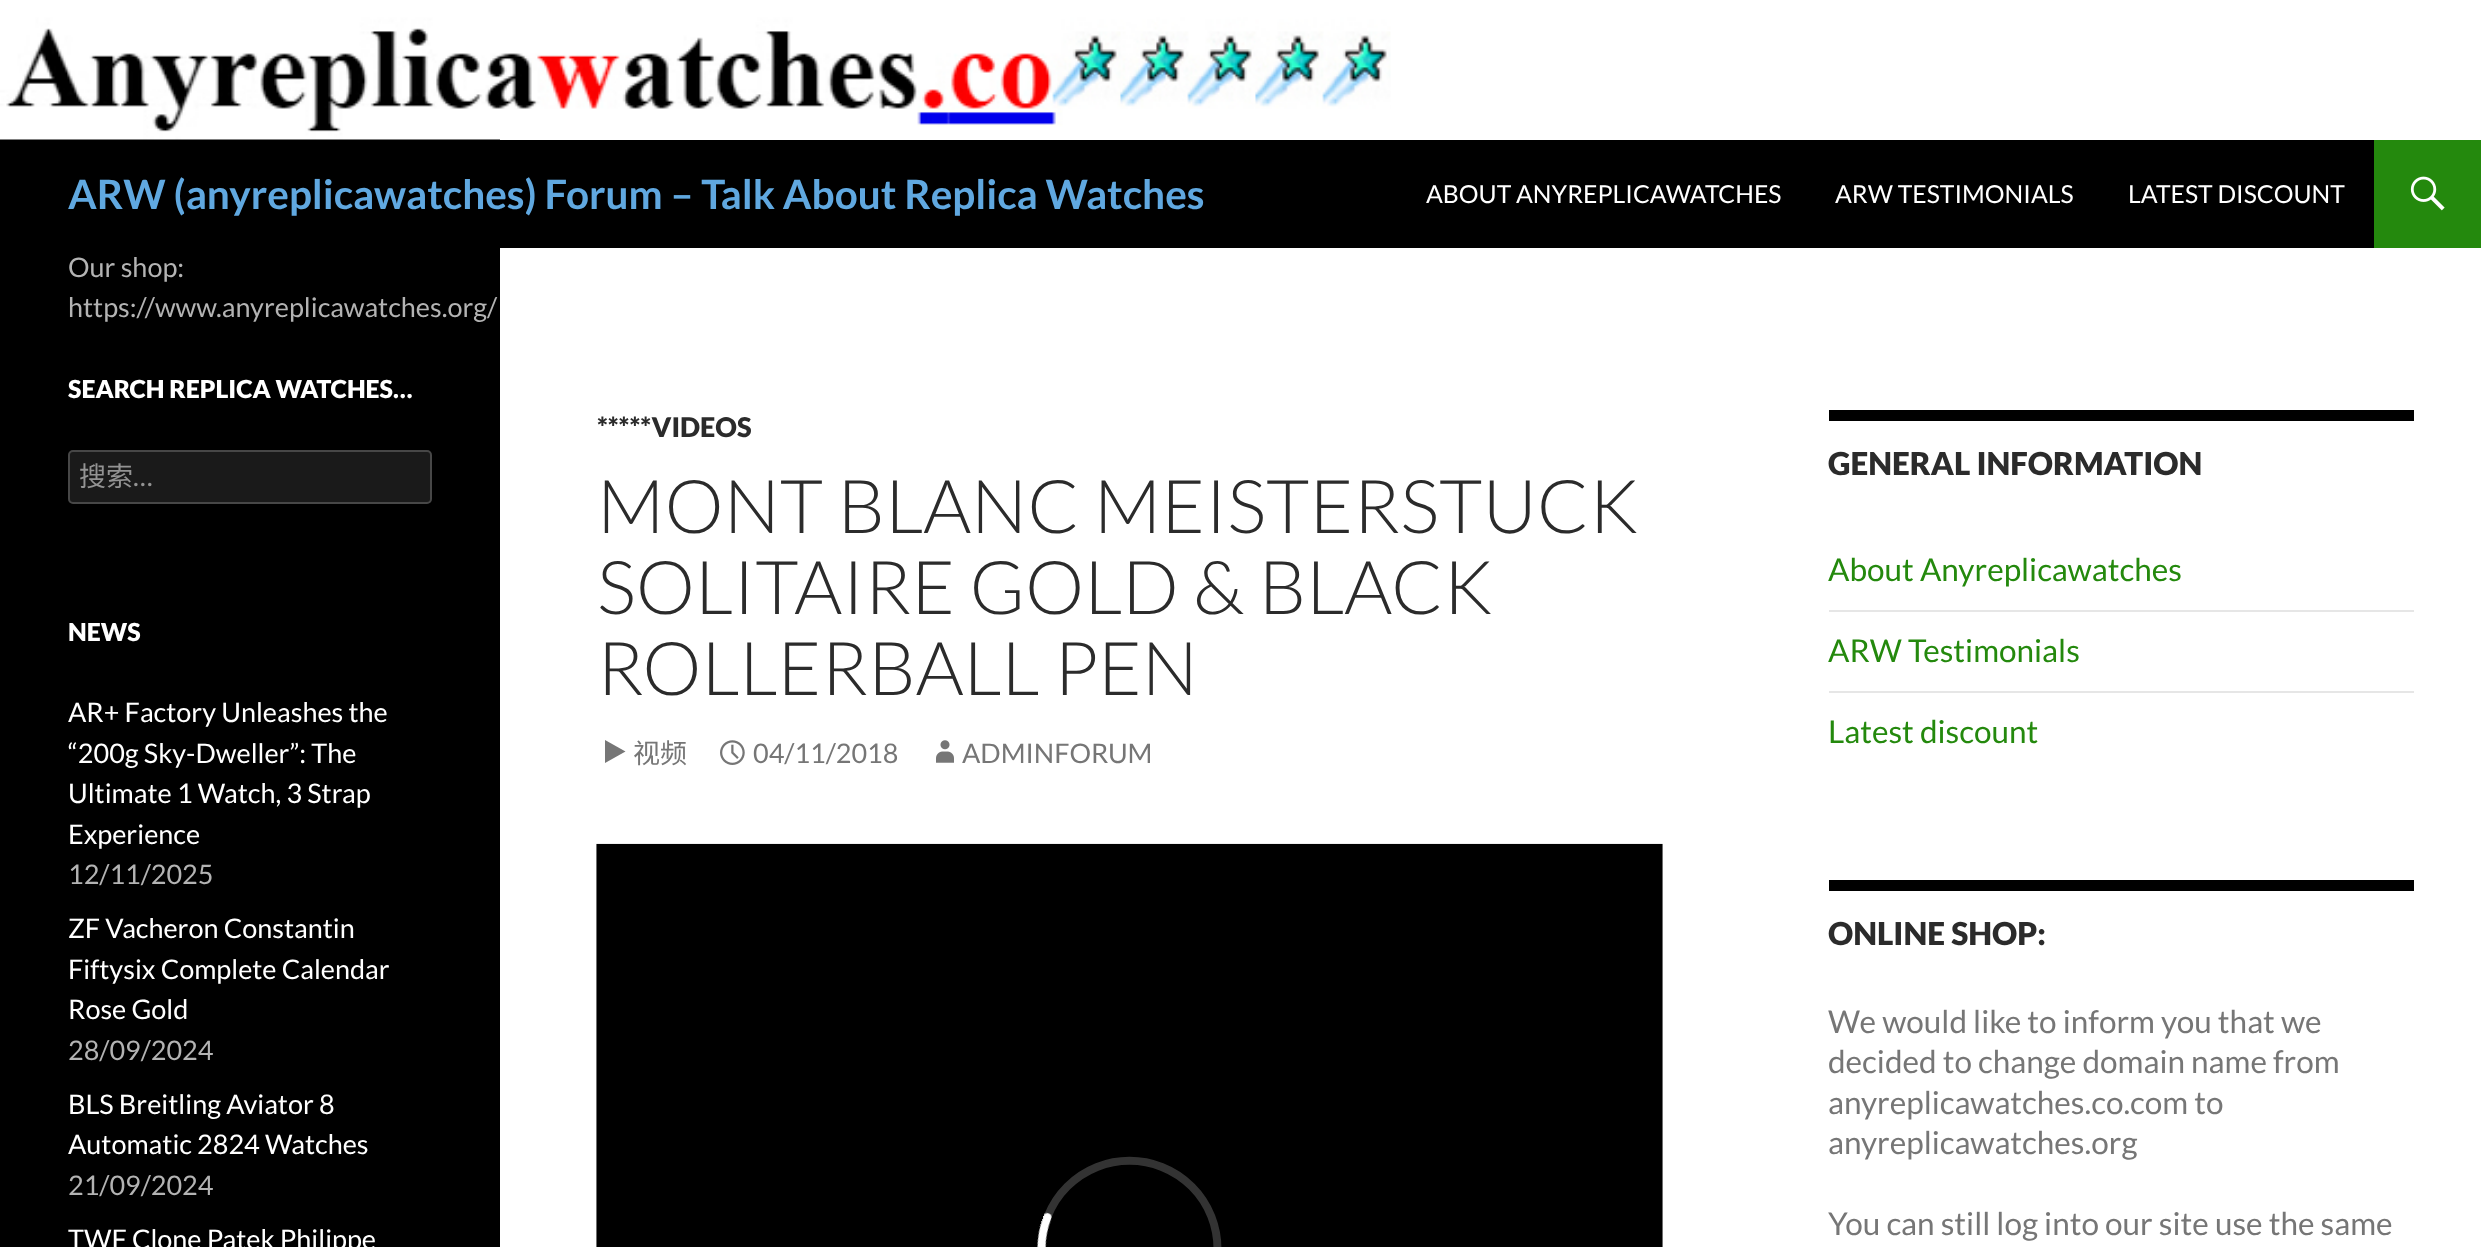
(async () => {
    const canvas = document.querySelector("canvas");
    canvas.width = 2481;
    canvas.height = 1247;
    const context = canvas.getContext("2d");
    context.miterLimit = 4;
    context.fontKerning = "normal";
    function write(s, x, y, font, color) {
        context.font = font;
        context.fillStyle = color;
        context.fillText(s, x, y);
    }
    function block(x, y, w, h, color) {
        context.fillStyle = color;
        context.fillRect(x, y, w, h);
    }
    function card(x, y, w, h, r, color) {
        context.fillStyle = color;
        context.beginPath();
        context.roundRect(x, y, w, h, r);
        context.fill();
    }
    async function photo(src, x, y, w, h) {
        const img = new Image();
        img.src = src;
        await img.decode();
        context.drawImage(img, x, y, w, h);
    }

    block(0, 0, 2481, 1247, "rgb(255, 255, 255)");
    block(0, 139, 500, 1108, "rgb(0, 0, 0)");
    await photo("media/1.png", 0, 0, 1391, 140);
    block(500, 140, 1874, 108, "rgb(0, 0, 0)");
    write("ARW (anyreplicawatches) Forum – Talk About Replica Watches", 68, 209, "bold 40.5px Lato", "rgb(96, 168, 224)");
    write("ABOUT ANYREPLICAWATCHES", 1426, 203, "24.75px Lato", "rgb(255, 255, 255)");
    write("ARW TESTIMONIALS", 1835, 203, "24.75px Lato", "rgb(255, 255, 255)");
    write("LATEST DISCOUNT", 2128, 203, "24.75px Lato", "rgb(255, 255, 255)");
    block(2374, 140, 107, 108, "rgb(36, 137, 13)");
    await photo("media/2.png", 2410, 176, 35, 35);
    write("Our shop:", 68, 277, "27px Lato", "rgb(179, 179, 179)");
    write("https://www.anyreplicawatches.org/", 68, 317, "27px Lato", "rgb(179, 179, 179)");
    write("SEARCH REPLICA WATCHES…", 68, 398, "900 24.75px Lato", "rgb(255, 255, 255)");
    card(68, 450, 364, 54, 5, "rgb(26, 26, 26)");
    context.beginPath();
    context.roundRect(69, 451, 362, 52, 4);
    context.strokeStyle = "rgba(255, 255, 255, 0.2)";
    context.lineWidth = 2;
    context.stroke();
    write("搜索", 79, 486, "27px Noto Sans CJK SC", "rgb(147, 147, 147)");
    write("…", 133, 486, "27px Lato", "rgb(147, 147, 147)");
    write("NEWS", 68, 641, "900 24.75px Lato", "rgb(255, 255, 255)");
    write("AR+ Factory Unleashes the", 68, 722, "27px Lato", "rgb(255, 255, 255)");
    write("“200g Sky-Dweller”: The", 68, 763, "27px Lato", "rgb(255, 255, 255)");
    write("Ultimate 1 Watch, 3 Strap", 68, 803, "27px Lato", "rgb(255, 255, 255)");
    write("Experience", 68, 844, "27px Lato", "rgb(255, 255, 255)");
    write("12/11/2025", 68, 884, "27px Lato", "rgb(179, 179, 179)");
    write("ZF Vacheron Constantin", 68, 938, "27px Lato", "rgb(255, 255, 255)");
    write("Fiftysix Complete Calendar", 68, 979, "27px Lato", "rgb(255, 255, 255)");
    write("Rose Gold", 68, 1019, "27px Lato", "rgb(255, 255, 255)");
    write("28/09/2024", 68, 1060, "27px Lato", "rgb(179, 179, 179)");
    write("BLS Breitling Aviator 8", 68, 1114, "27px Lato", "rgb(255, 255, 255)");
    write("Automatic 2824 Watches", 68, 1154, "27px Lato", "rgb(255, 255, 255)");
    write("21/09/2024", 68, 1195, "27px Lato", "rgb(179, 179, 179)");
    write("TWF Clone Patek Philippe", 68, 1249, "27px Lato", "rgb(255, 255, 255)");
    write("*****VIDEOS", 597, 437, "900 27px Lato", "rgb(43, 43, 43)");
    write("MONT BLANC MEISTERSTUCK", 597, 533, "300 74.25px Lato", "rgb(43, 43, 43)");
    write("SOLITAIRE GOLD & BLACK", 597, 614, "300 74.25px Lato", "rgb(43, 43, 43)");
    write("ROLLERBALL PEN", 597, 695, "300 74.25px Lato", "rgb(43, 43, 43)");
    context.fillStyle = "rgb(118, 118, 118)";
    context.beginPath();
    context.moveTo(605, 763);
    context.lineTo(605, 740);
    context.lineTo(625.5, 751.5);
    context.closePath();
    context.fill();
    write("视频", 633, 763, "27px Noto Sans CJK SC", "rgb(118, 118, 118)");
    await photo("media/3.png", 720, 740, 25, 25);
    write("04/11/2018", 753, 763, "27px Lato", "rgb(118, 118, 118)");
    await photo("media/4.png", 936, 740, 18, 23);
    write("ADMINFORUM", 962, 763, "27px Lato", "rgb(118, 118, 118)");
    await photo("media/5.png", 596, 843, 1067, 404);
    block(1829, 410, 585, 11, "rgb(0, 0, 0)");
    write("GENERAL INFORMATION", 1828, 475, "900 31.5px Lato", "rgb(43, 43, 43)");
    write("About Anyreplicawatches", 1828, 581, "31.5px Lato", "rgb(36, 137, 13)");
    block(1829, 610, 585, 2, "rgb(230, 230, 230)");
    write("ARW Testimonials", 1828, 662, "31.5px Lato", "rgb(36, 137, 13)");
    block(1829, 691, 585, 2, "rgb(230, 230, 230)");
    write("Latest discount", 1828, 743, "31.5px Lato", "rgb(36, 137, 13)");
    block(1829, 880, 585, 11, "rgb(0, 0, 0)");
    write("ONLINE SHOP:", 1828, 945, "900 31.5px Lato", "rgb(43, 43, 43)");
    write("We would like to inform you that we", 1828, 1033, "31.5px Lato", "rgb(118, 118, 118)");
    write("decided to change domain name from", 1828, 1073, "31.5px Lato", "rgb(118, 118, 118)");
    write("anyreplicawatches.co.com to", 1828, 1114, "31.5px Lato", "rgb(118, 118, 118)");
    write("anyreplicawatches.org", 1828, 1154, "31.5px Lato", "rgb(118, 118, 118)");
    write("You can still log into our site use the same", 1828, 1235, "31.5px Lato", "rgb(118, 118, 118)");
})();
